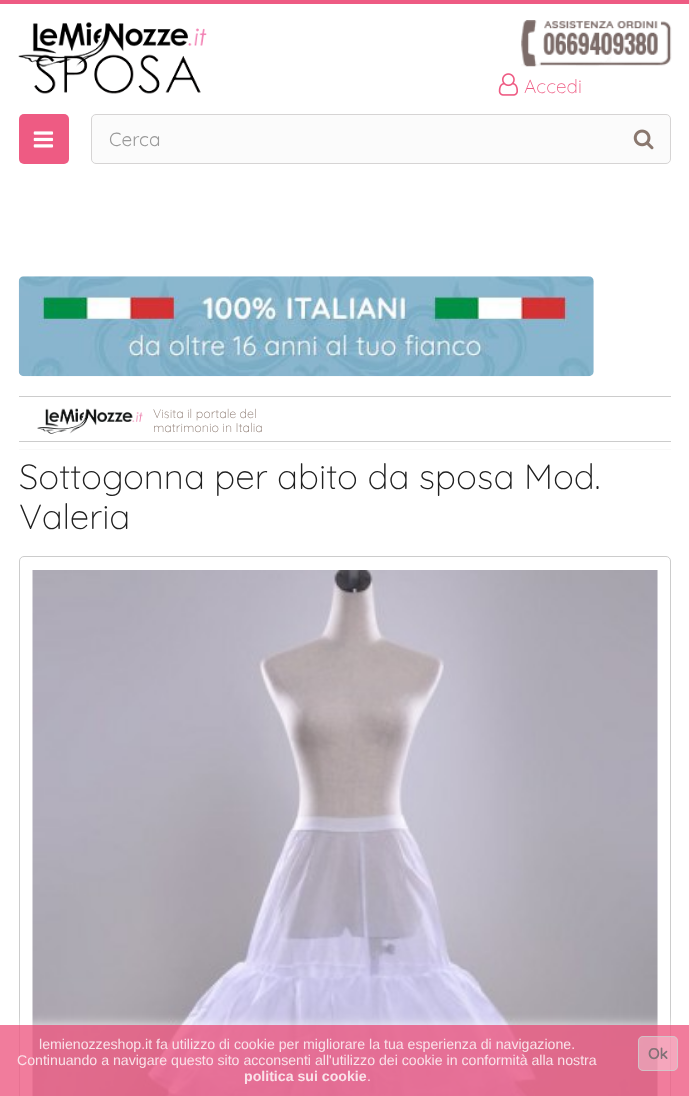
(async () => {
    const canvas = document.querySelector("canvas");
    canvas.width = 689;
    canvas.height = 1096;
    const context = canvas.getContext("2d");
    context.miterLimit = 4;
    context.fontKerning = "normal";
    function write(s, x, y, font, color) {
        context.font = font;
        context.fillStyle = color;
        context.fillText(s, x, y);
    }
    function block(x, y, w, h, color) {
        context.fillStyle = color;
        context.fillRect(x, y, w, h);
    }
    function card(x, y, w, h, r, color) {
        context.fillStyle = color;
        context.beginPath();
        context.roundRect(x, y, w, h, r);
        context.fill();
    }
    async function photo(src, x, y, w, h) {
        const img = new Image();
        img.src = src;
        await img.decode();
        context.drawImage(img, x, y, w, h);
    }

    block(0, 0, 689, 1096, "rgb(255, 255, 255)");
    block(0, 0, 689, 4, "rgb(238, 91, 131)");
    await photo("media/1.png", 18, 22, 189, 72);
    await photo("media/2.png", 521, 20, 151, 47);
    await photo("media/3.png", 498, 73, 20, 23);
    write("Accedi", 524, 93, "300 19px Quicksand", "rgb(238, 91, 131)");
    card(19, 114, 50, 50, 5, "rgb(238, 91, 131)");
    await photo("media/4.png", 33, 131, 21, 17);
    context.fillStyle = "rgb(251, 251, 251)";
    context.beginPath();
    context.roundRect(91.5, 114.5, 579, 49, 4.5);
    context.fill();
    context.strokeStyle = "rgb(214, 212, 212)";
    context.stroke();
    write("Cerca", 109, 146, "19px Quicksand", "rgb(153, 153, 153)");
    await photo("media/5.png", 633, 129, 21, 21);
    await photo("media/6.png", 18, 276, 576, 101);
    block(19, 449, 652, 1, "rgb(249, 249, 249)");
    block(19, 396, 652, 1, "rgb(204, 204, 204)");
    block(19, 441, 652, 1, "rgb(204, 204, 204)");
    await photo("media/7.png", 37, 408, 106, 26);
    write("Visita il portale del", 153, 418, "300 12.5px Quicksand", "rgb(138, 120, 111)");
    write("matrimonio in Italia", 153, 432, "300 12.5px Quicksand", "rgb(138, 120, 111)");
    write("Sottogonna per abito da sposa Mod.", 19, 489, "300 35px Quicksand", "rgb(32, 32, 32)");
    write("Valeria", 19, 529, "300 35px Quicksand", "rgb(32, 32, 32)");
    context.beginPath();
    context.roundRect(19.5, 556.5, 651, 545, 4.5);
    context.strokeStyle = "rgb(204, 204, 204)";
    context.stroke();
    block(657, 570, 1, 526, "rgb(251, 251, 251)");
    await photo("media/8.png", 32, 570, 626, 526);
    context.save();
    context.beginPath();
    context.rect(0, 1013, 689, 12);
    context.clip();
    context.fillStyle = "rgba(255, 255, 255, 0.8)";
    context.filter = "blur(6px)";
    context.beginPath();
    context.rect(0, 1025, 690, 71);
    context.fill();
    context.filter = "none";
    context.restore();
    block(0, 1025, 689, 71, "rgba(238, 91, 131, 0.8)");
    write("lemienozzeshop.it fa utilizzo di cookie per migliorare la tua esperienza di navigazione.", 39, 1049, "14.15px Liberation Sans", "rgb(250, 226, 233)");
    write("Continuando a navigare questo sito acconsenti all'utilizzo dei cookie in conformità alla nostra", 17, 1065, "14.15px Liberation Sans", "rgb(250, 226, 233)");
    write("politica sui cookie", 244, 1081, "bold 14.15px Liberation Sans", "rgb(250, 226, 233)");
    write(".", 367, 1081, "14.15px Liberation Sans", "rgb(250, 226, 233)");
    card(638, 1036, 40, 35, 5, "rgba(255, 255, 255, 0.32)");
    context.beginPath();
    context.roundRect(638.5, 1036.5, 39, 34, 4.5);
    context.strokeStyle = "rgba(204, 204, 204, 0.8)";
    context.stroke();
    write("Ok", 648, 1059, "bold 15px Quicksand", "rgb(129, 113, 118)");
})();
